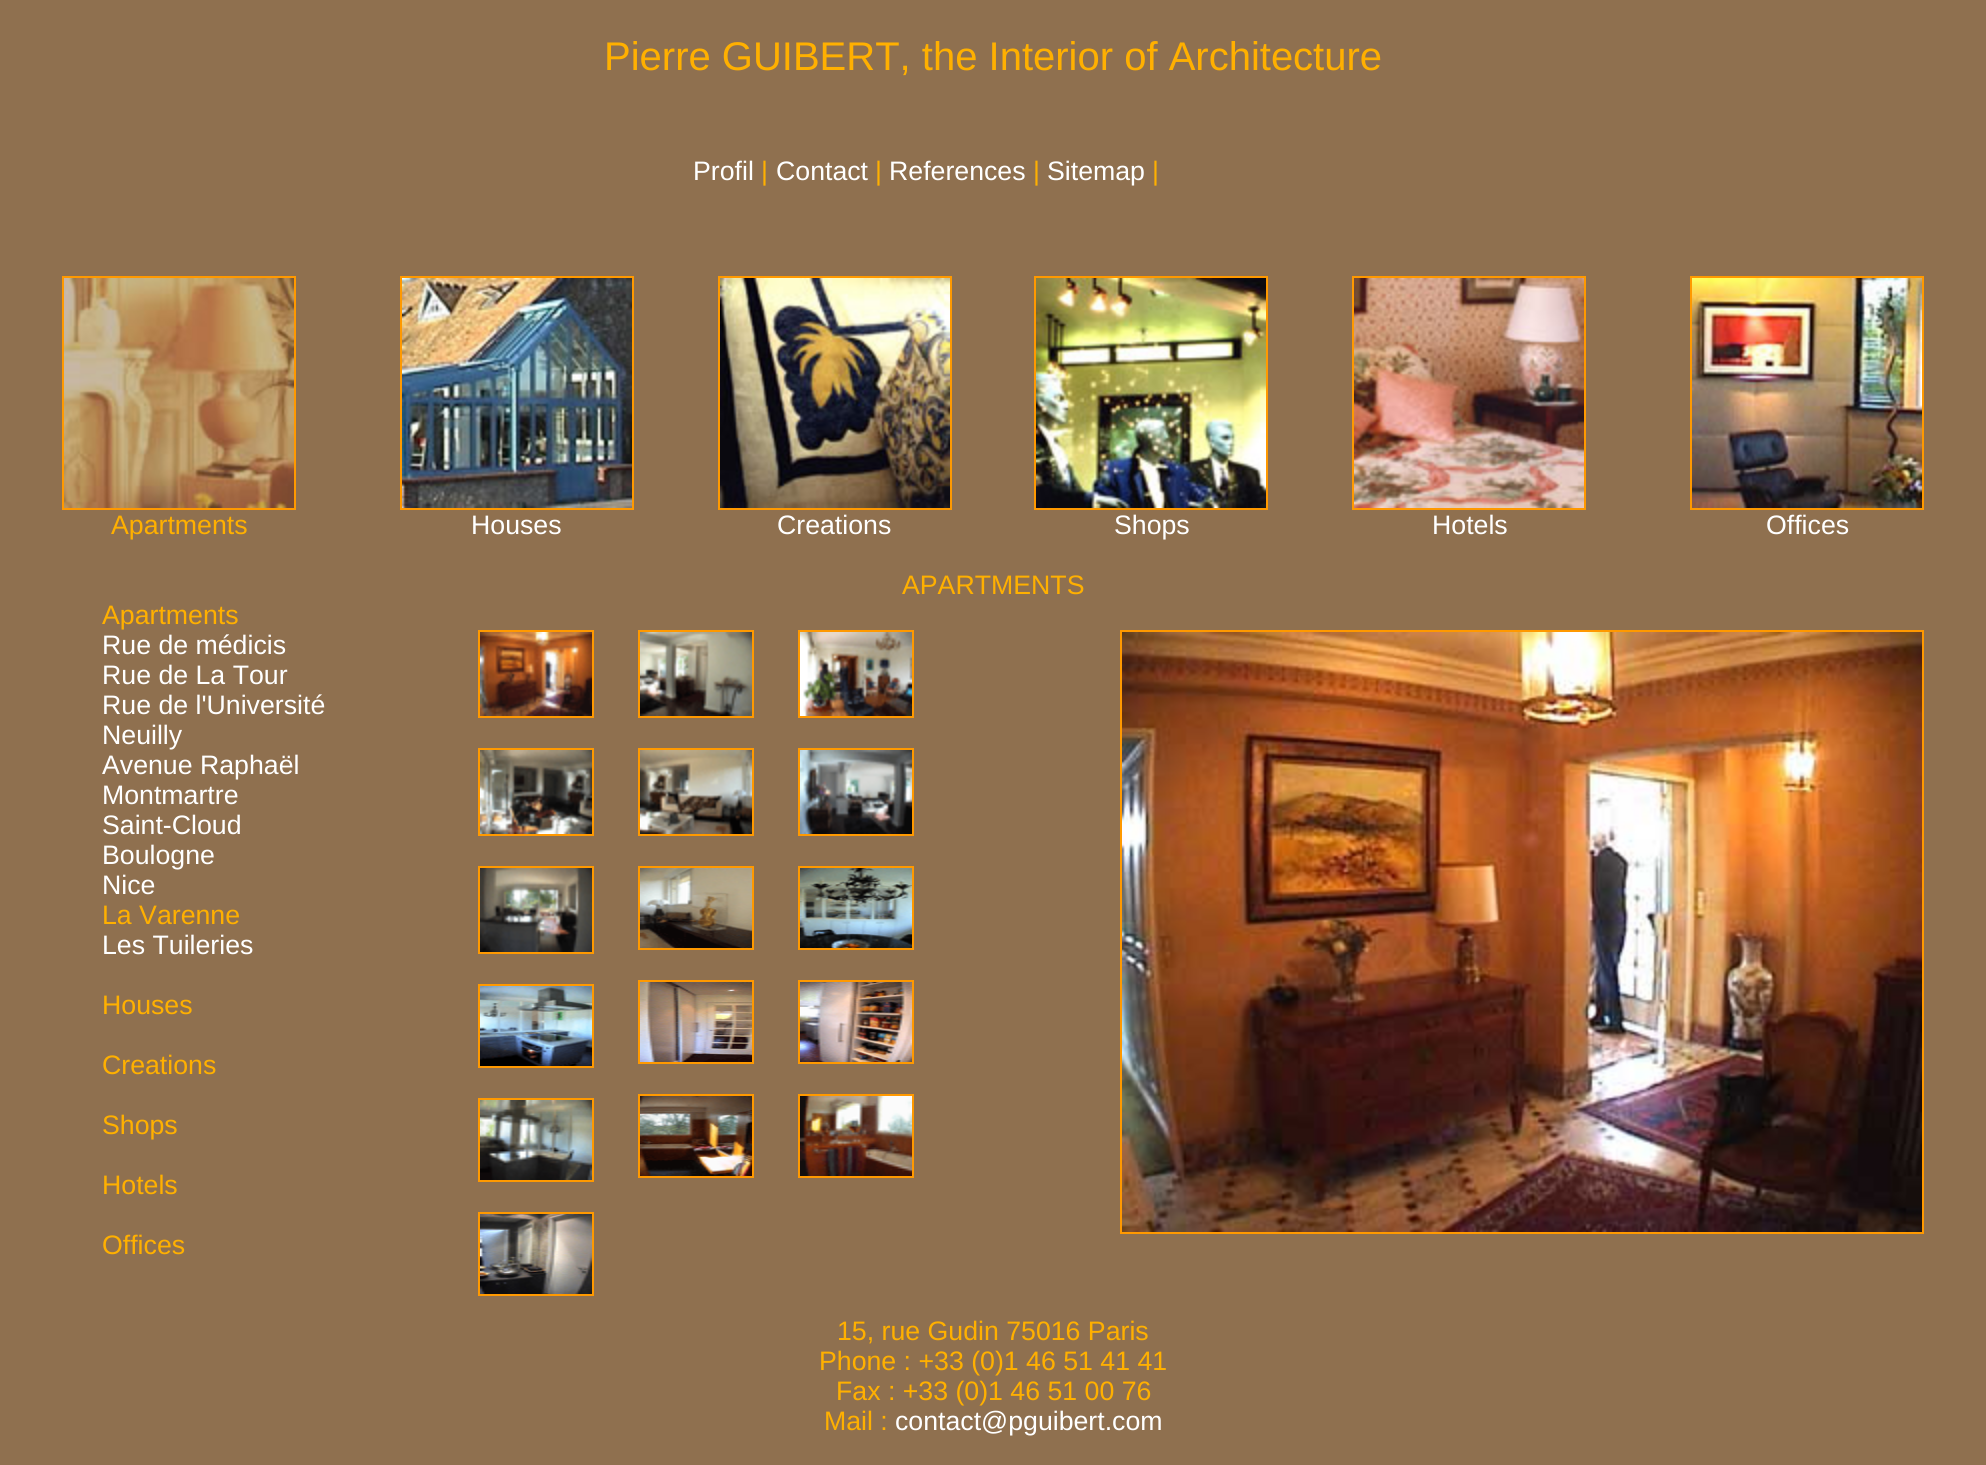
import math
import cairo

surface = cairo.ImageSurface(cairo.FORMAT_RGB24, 1986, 1465)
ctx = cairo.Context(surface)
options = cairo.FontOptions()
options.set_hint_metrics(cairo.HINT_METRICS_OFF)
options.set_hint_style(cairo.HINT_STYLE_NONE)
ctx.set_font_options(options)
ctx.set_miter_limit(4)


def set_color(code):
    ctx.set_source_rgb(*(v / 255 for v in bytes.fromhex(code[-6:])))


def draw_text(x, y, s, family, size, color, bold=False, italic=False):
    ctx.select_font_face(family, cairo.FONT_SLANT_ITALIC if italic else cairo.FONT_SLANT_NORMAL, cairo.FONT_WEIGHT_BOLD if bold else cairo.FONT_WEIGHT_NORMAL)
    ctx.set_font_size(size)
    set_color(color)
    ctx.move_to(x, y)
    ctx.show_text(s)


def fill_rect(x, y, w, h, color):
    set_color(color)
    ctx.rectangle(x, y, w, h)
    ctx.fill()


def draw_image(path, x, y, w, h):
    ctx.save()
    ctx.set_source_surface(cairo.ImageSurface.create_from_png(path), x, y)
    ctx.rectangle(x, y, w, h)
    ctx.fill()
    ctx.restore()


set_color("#8f704f")
ctx.paint()
draw_text(604, 70, "Pierre GUIBERT, the Interior of Architecture", "Liberation Sans", 40, "#ffb000")
draw_text(693, 180, "Profil", "Liberation Sans", 26.7, "#ffffff")
draw_text(761, 180, "|", "Liberation Sans", 26.7, "#ffb000")
draw_text(776, 180, "Contact", "Liberation Sans", 26.7, "#ffffff")
draw_text(875, 180, "|", "Liberation Sans", 26.7, "#ffb000")
draw_text(889, 180, "References", "Liberation Sans", 26.7, "#ffffff")
draw_text(1033, 180, "|", "Liberation Sans", 26.7, "#ffb000")
draw_text(1047, 180, "Sitemap", "Liberation Sans", 26.7, "#ffffff")
draw_text(1152, 180, "|", "Liberation Sans", 26.7, "#ffb000")
fill_rect(62, 276, 234, 234, "#ff9900")
draw_image("assets/img1.png", 64, 278, 230, 230)
fill_rect(400, 276, 234, 234, "#ff9900")
draw_image("assets/img2.png", 402, 278, 230, 230)
fill_rect(718, 276, 234, 234, "#ff9900")
draw_image("assets/img3.png", 720, 278, 230, 230)
fill_rect(1034, 276, 234, 234, "#ff9900")
draw_image("assets/img4.png", 1036, 278, 230, 230)
fill_rect(1352, 276, 234, 234, "#ff9900")
draw_image("assets/img5.png", 1354, 278, 230, 230)
fill_rect(1690, 276, 234, 234, "#ff9900")
draw_image("assets/img6.png", 1692, 278, 230, 230)
draw_text(111, 534, "Apartments", "Liberation Sans", 26.7, "#ffb000")
draw_text(471, 534, "Houses", "Liberation Sans", 26.7, "#ffffff")
draw_text(777, 534, "Creations", "Liberation Sans", 26.7, "#ffffff")
draw_text(1114, 534, "Shops", "Liberation Sans", 26.7, "#ffffff")
draw_text(1432, 534, "Hotels", "Liberation Sans", 26.7, "#ffffff")
draw_text(1766, 534, "Offices", "Liberation Sans", 26.7, "#ffffff")
draw_text(902, 594, "APARTMENTS", "Liberation Sans", 26.7, "#ffb000")
draw_text(102, 624, "Apartments", "Liberation Sans", 26.7, "#ffb000")
draw_text(102, 654, "Rue de médicis", "Liberation Sans", 26.7, "#ffffff")
draw_text(102, 684, "Rue de La Tour", "Liberation Sans", 26.7, "#ffffff")
draw_text(102, 714, "Rue de l'Université", "Liberation Sans", 26.7, "#ffffff")
draw_text(102, 744, "Neuilly", "Liberation Sans", 26.7, "#ffffff")
draw_text(102, 774, "Avenue Raphaël", "Liberation Sans", 26.7, "#ffffff")
draw_text(102, 804, "Montmartre", "Liberation Sans", 26.7, "#ffffff")
draw_text(102, 834, "Saint-Cloud", "Liberation Sans", 26.7, "#ffffff")
draw_text(102, 864, "Boulogne", "Liberation Sans", 26.7, "#ffffff")
draw_text(102, 894, "Nice", "Liberation Sans", 26.7, "#ffffff")
draw_text(102, 924, "La Varenne", "Liberation Sans", 26.7, "#ffb000")
draw_text(102, 954, "Les Tuileries", "Liberation Sans", 26.7, "#ffffff")
draw_text(102, 1014, "Houses", "Liberation Sans", 26.7, "#ffb000")
draw_text(102, 1074, "Creations", "Liberation Sans", 26.7, "#ffb000")
draw_text(102, 1134, "Shops", "Liberation Sans", 26.7, "#ffb000")
draw_text(102, 1194, "Hotels", "Liberation Sans", 26.7, "#ffb000")
draw_text(102, 1254, "Offices", "Liberation Sans", 26.7, "#ffb000")
fill_rect(478, 630, 116, 88, "#ff9900")
draw_image("assets/img7.png", 480, 632, 112, 84)
fill_rect(478, 748, 116, 88, "#ff9900")
draw_image("assets/img8.png", 480, 750, 112, 84)
fill_rect(478, 866, 116, 88, "#ff9900")
draw_image("assets/img9.png", 480, 868, 112, 84)
fill_rect(478, 984, 116, 84, "#ff9900")
draw_image("assets/img10.png", 480, 986, 112, 80)
fill_rect(478, 1098, 116, 84, "#ff9900")
draw_image("assets/img11.png", 480, 1100, 112, 80)
fill_rect(478, 1212, 116, 84, "#ff9900")
draw_image("assets/img12.png", 480, 1214, 112, 80)
fill_rect(638, 630, 116, 88, "#ff9900")
draw_image("assets/img13.png", 640, 632, 112, 84)
fill_rect(638, 748, 116, 88, "#ff9900")
draw_image("assets/img14.png", 640, 750, 112, 84)
fill_rect(638, 866, 116, 84, "#ff9900")
draw_image("assets/img15.png", 640, 868, 112, 80)
fill_rect(638, 980, 116, 84, "#ff9900")
draw_image("assets/img16.png", 640, 982, 112, 80)
fill_rect(638, 1094, 116, 84, "#ff9900")
draw_image("assets/img17.png", 640, 1096, 112, 80)
fill_rect(798, 630, 116, 88, "#ff9900")
draw_image("assets/img18.png", 800, 632, 112, 84)
fill_rect(798, 748, 116, 88, "#ff9900")
draw_image("assets/img19.png", 800, 750, 112, 84)
fill_rect(798, 866, 116, 84, "#ff9900")
draw_image("assets/img20.png", 800, 868, 112, 80)
fill_rect(798, 980, 116, 84, "#ff9900")
draw_image("assets/img21.png", 800, 982, 112, 80)
fill_rect(798, 1094, 116, 84, "#ff9900")
draw_image("assets/img22.png", 800, 1096, 112, 80)
fill_rect(1120, 630, 804, 604, "#ff9900")
draw_image("assets/img23.png", 1122, 632, 800, 600)
draw_text(837, 1340, "15, rue Gudin 75016 Paris", "Liberation Sans", 26.7, "#ffb000")
draw_text(819, 1370, "Phone : +33 (0)1 46 51 41 41", "Liberation Sans", 26.7, "#ffb000")
draw_text(836, 1400, "Fax : +33 (0)1 46 51 00 76", "Liberation Sans", 26.7, "#ffb000")
draw_text(824, 1430, "Mail :", "Liberation Sans", 26.7, "#ffb000")
draw_text(895, 1430, "contact@pguibert.com", "Liberation Sans", 26.7, "#ffffff")
surface.write_to_png("output.png")
